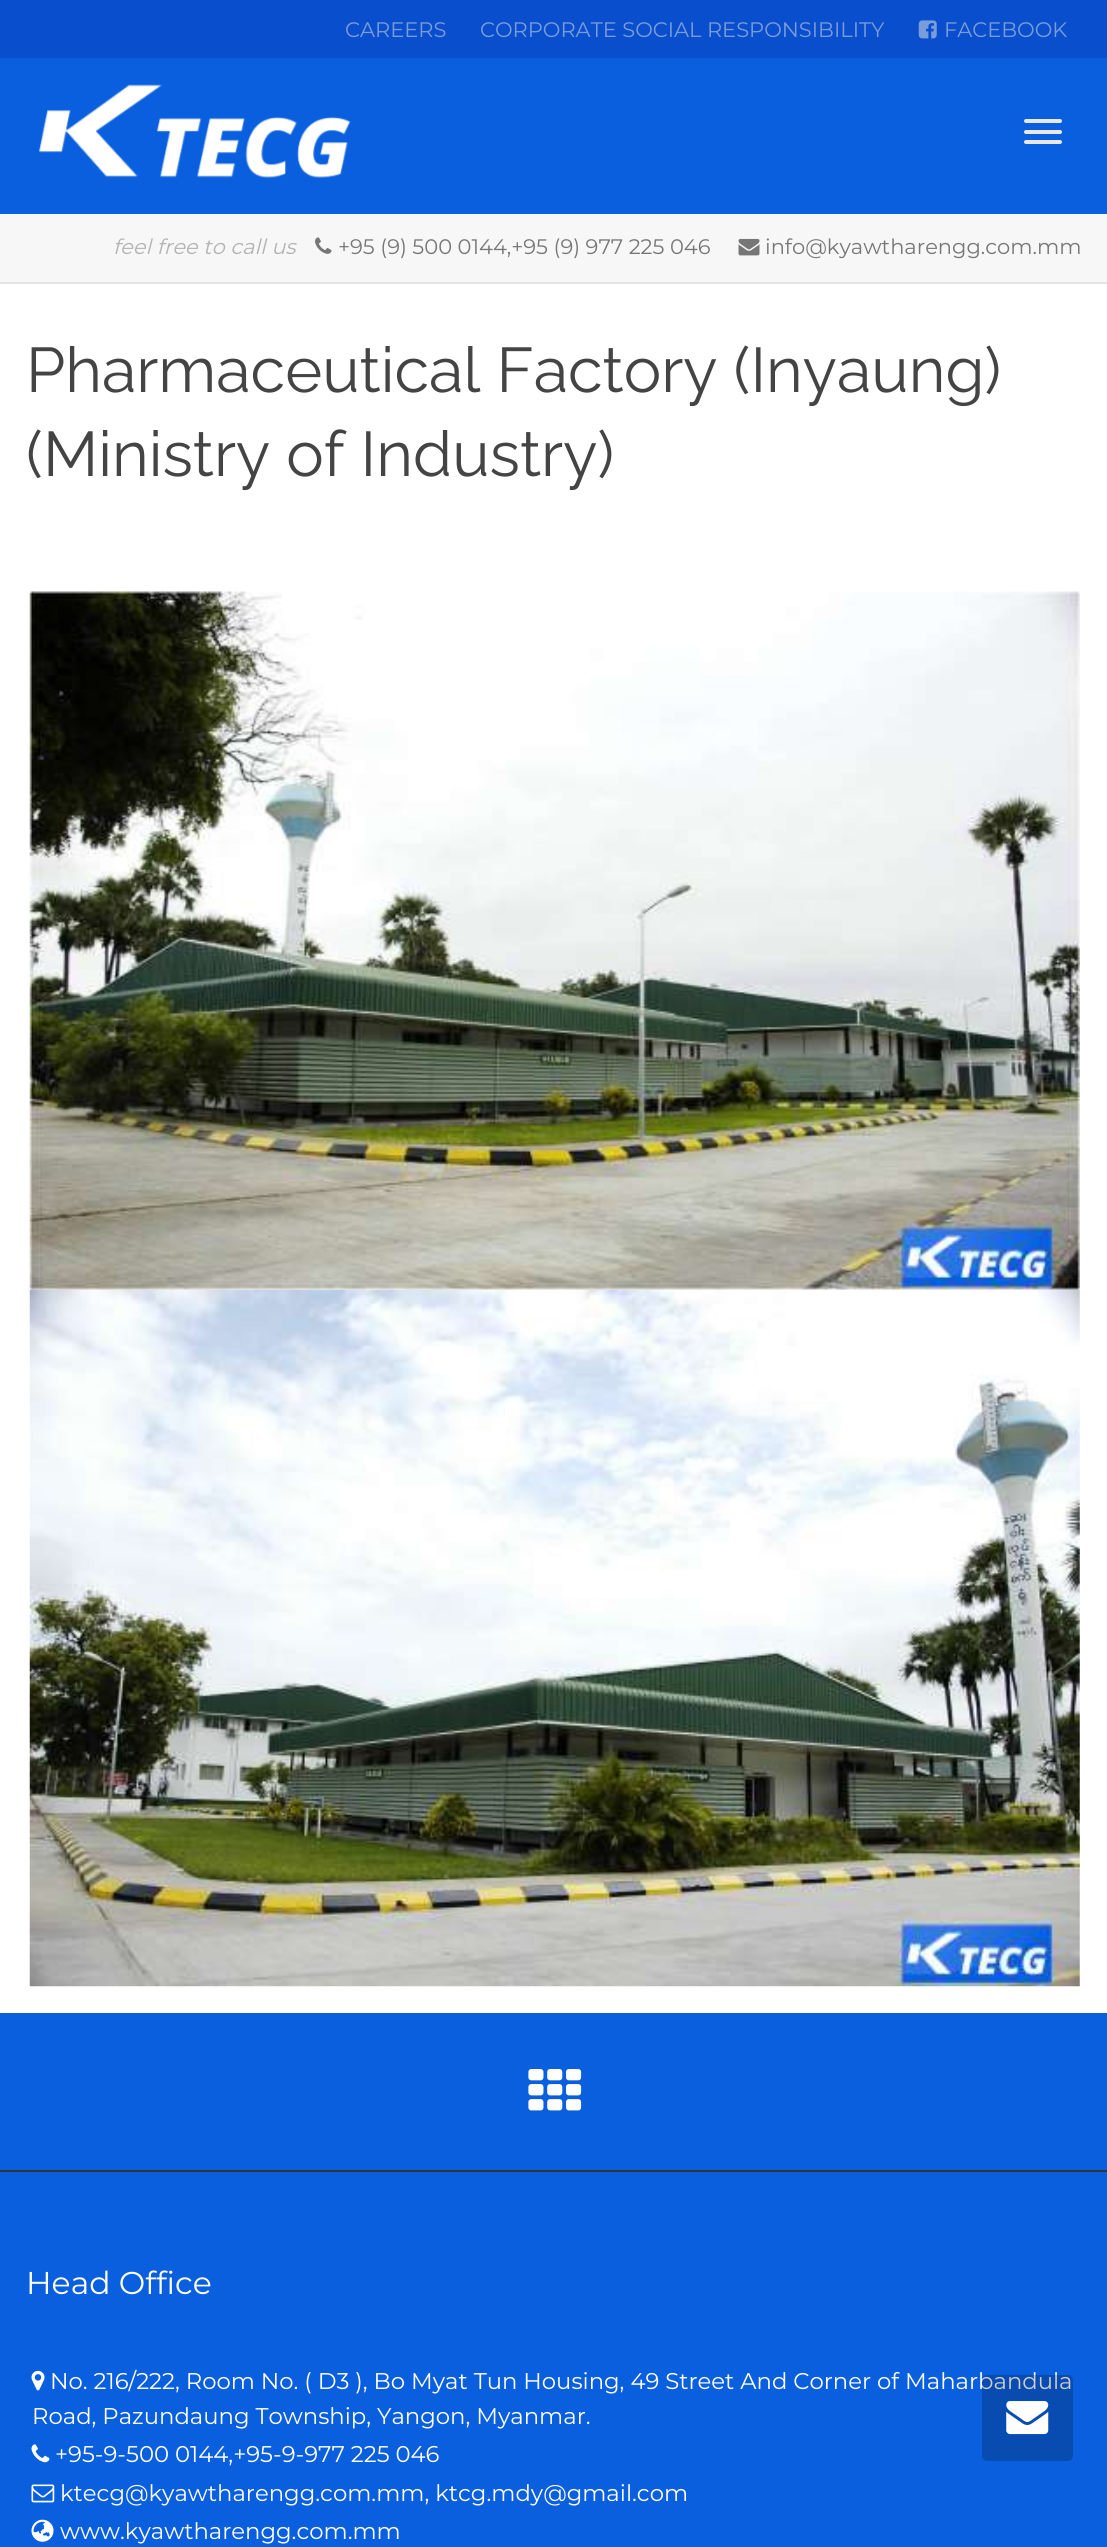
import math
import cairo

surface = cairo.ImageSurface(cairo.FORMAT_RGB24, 1107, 2547)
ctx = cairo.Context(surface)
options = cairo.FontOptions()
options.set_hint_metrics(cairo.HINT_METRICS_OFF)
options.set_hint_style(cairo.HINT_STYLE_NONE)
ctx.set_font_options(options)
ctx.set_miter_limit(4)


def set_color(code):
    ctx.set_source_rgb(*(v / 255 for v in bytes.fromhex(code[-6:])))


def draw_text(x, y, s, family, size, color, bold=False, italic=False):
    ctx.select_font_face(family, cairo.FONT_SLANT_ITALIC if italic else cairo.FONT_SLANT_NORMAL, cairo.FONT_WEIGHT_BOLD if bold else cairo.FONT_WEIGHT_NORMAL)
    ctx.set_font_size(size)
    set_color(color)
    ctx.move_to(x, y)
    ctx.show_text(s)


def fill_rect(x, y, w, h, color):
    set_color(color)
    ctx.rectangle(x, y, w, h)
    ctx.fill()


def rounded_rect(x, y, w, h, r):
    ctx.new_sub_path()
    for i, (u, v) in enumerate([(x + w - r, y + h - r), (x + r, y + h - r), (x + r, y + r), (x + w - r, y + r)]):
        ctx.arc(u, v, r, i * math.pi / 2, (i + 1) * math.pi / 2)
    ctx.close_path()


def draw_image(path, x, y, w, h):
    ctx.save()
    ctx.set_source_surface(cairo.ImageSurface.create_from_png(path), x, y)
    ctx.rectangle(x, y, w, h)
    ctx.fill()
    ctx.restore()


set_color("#ffffff")
ctx.paint()
fill_rect(0, 0, 1107, 58, "#094ecd")
draw_text(345, 37, "CAREERS", "Montserrat Thin", 21, "#7a9cdc")
draw_text(480, 37, "CORPORATE SOCIAL RESPONSIBILITY", "Montserrat Thin", 21, "#7a9cdc")
draw_image("assets/img1.png", 918, 20, 19, 19)
draw_text(944, 37, "FACEBOOK", "Montserrat Thin", 21, "#7a9cdc")
fill_rect(0, 58, 1107, 156, "#0a5fde")
draw_image("assets/img2.png", 39, 84, 312, 95)
set_color("#e8e8e8")
rounded_rect(1024, 119, 38, 4, 2)
ctx.fill()
rounded_rect(1024, 130, 38, 4, 2)
ctx.fill()
rounded_rect(1024, 140, 38, 4, 2)
ctx.fill()
fill_rect(0, 214, 1107, 68, "#f7f7f7")
fill_rect(0, 282, 1107, 2, "#e5e5e5")
draw_text(113, 254, "feel free to call us", "Montserrat Thin", 21, "#b3b3b3", italic=True)
draw_image("assets/img3.png", 315, 237, 17, 17)
draw_text(338, 254, "+95 (9) 500 0144,+95 (9) 977 225 046", "Montserrat Thin", 21, "#777777")
draw_image("assets/img4.png", 738, 238, 22, 18)
draw_text(765, 254, "info@kyawtharengg.com.mm", "Montserrat Thin", 21, "#777777")
draw_text(26, 392, "Pharmaceutical Factory (Inyaung)", "Raleway", 63, "#444444")
draw_text(26, 476, "(Ministry of Industry)", "Raleway", 63, "#444444")
draw_image("assets/img5.png", 29, 591, 1051, 699)
draw_image("assets/img6.png", 29, 1289, 1051, 698)
fill_rect(0, 2013, 1107, 157, "#0a5fde")
draw_image("assets/img7.png", 528, 2069, 54, 42)
fill_rect(0, 2172, 1107, 375, "#0a5fde")
fill_rect(0, 2170, 1107, 2, "#333333")
draw_text(26, 2294, "Head Office", "Montserrat Thin", 31.5, "#ffffff")
draw_image("assets/img8.png", 31, 2370, 14, 21)
draw_text(50, 2389, "No. 216/222, Room No. ( D3 ), Bo Myat Tun Housing, 49 Street And Corner of Maharbandula", "Montserrat Thin", 22.75, "#ffffff")
draw_text(32, 2424, "Road, Pazundaung Township, Yangon, Myanmar.", "Montserrat Thin", 22.75, "#ffffff")
draw_image("assets/img9.png", 31, 2444, 19, 19)
draw_text(55, 2462, "+95-9-500 0144,+95-9-977 225 046", "Montserrat Thin", 22.75, "#ffffff")
draw_image("assets/img10.png", 31, 2484, 24, 19)
draw_text(60, 2501, "ktecg@kyawtharengg.com.mm, ktcg.mdy@gmail.com", "Montserrat Thin", 22.75, "#ffffff")
draw_image("assets/img11.png", 31, 2519, 23, 23)
draw_text(60, 2539, "www.kyawtharengg.com.mm", "Montserrat Thin", 22.75, "#ffffff")
ctx.set_source_rgba(0, 0, 0, 0.2)
rounded_rect(982, 2375, 91, 86, 5)
ctx.fill()
draw_image("assets/img12.png", 1006, 2401, 43, 34)
surface.write_to_png("output.png")
